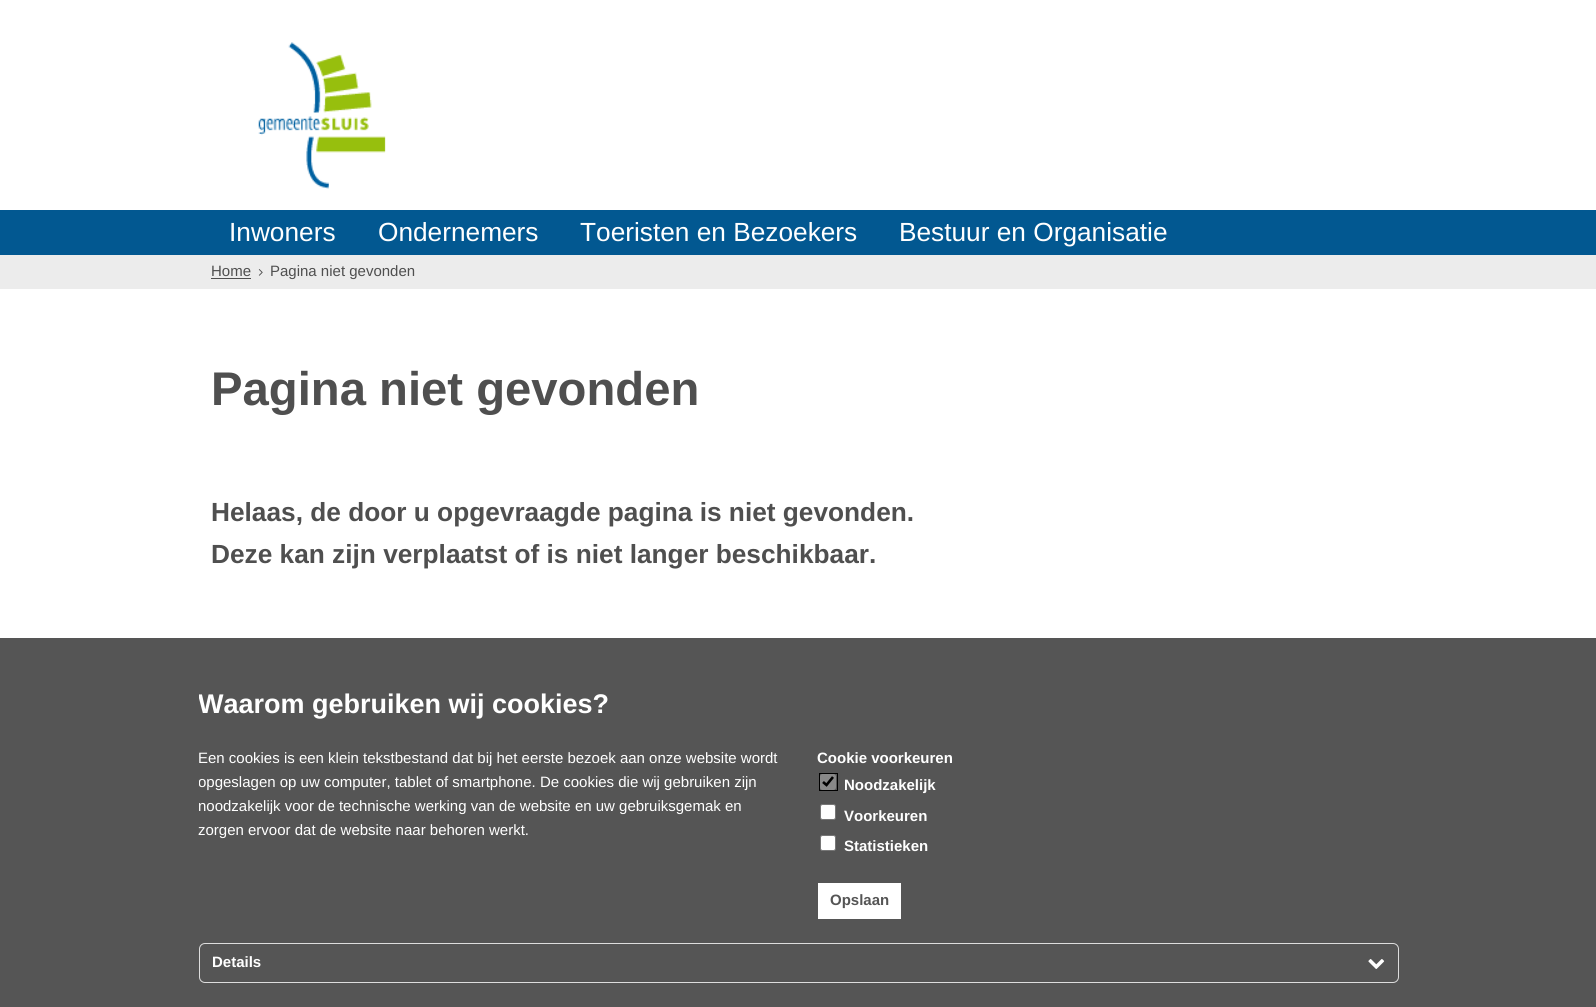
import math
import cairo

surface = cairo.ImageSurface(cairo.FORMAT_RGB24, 1596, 1007)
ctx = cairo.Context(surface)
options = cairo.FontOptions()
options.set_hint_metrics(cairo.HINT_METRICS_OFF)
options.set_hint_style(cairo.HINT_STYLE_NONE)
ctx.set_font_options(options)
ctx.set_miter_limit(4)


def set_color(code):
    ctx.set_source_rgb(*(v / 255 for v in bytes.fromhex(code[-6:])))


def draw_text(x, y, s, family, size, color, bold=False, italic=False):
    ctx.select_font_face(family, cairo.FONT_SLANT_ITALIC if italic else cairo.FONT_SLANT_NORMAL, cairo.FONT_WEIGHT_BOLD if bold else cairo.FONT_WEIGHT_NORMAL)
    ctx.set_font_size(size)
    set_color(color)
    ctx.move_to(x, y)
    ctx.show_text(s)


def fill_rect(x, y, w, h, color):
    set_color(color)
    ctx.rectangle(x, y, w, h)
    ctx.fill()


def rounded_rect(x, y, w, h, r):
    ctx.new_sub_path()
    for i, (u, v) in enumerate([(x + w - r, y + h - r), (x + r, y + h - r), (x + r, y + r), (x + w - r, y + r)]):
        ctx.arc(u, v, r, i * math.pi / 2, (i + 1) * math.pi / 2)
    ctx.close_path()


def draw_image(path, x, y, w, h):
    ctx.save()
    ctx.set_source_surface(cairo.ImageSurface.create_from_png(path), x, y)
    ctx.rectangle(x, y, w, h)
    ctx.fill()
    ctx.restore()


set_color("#ffffff")
ctx.paint()
draw_image("assets/img1.png", 258, 42, 128, 147)
fill_rect(0, 210, 1596, 45, "#025891")
draw_text(229, 241, "Inwoners", "Liberation Sans", 26.25, "#ffffff")
draw_text(378, 241, "Ondernemers", "Liberation Sans", 26.25, "#ffffff")
draw_text(580, 241, "Toeristen en Bezoekers", "Liberation Sans", 26.25, "#ffffff")
draw_text(899, 241, "Bestuur en Organisatie", "Liberation Sans", 26.25, "#ffffff")
fill_rect(0, 255, 1596, 34, "#ececec")
draw_text(211, 276, "Home", "Liberation Sans", 15, "#4f4f4f")
fill_rect(211, 278, 40, 1, "#4f4f4f")
draw_image("assets/img2.png", 258, 269, 5, 7)
draw_text(270, 276, "Pagina niet gevonden", "Liberation Sans", 15, "#4f4f4f")
draw_text(211, 405, "Pagina niet gevonden", "Liberation Sans", 47.25, "#4f4f4f", bold=True)
draw_text(211, 521, "Helaas, de door u opgevraagde pagina is niet gevonden.", "Liberation Sans", 26.25, "#4f4f4f", bold=True)
draw_text(211, 563, "Deze kan zijn verplaatst of is niet langer beschikbaar.", "Liberation Sans", 26.25, "#4f4f4f", bold=True)
fill_rect(0, 638, 1596, 369, "#555555")
ctx.save()
ctx.rectangle(199, 663, 1200, 320)
ctx.clip()
draw_text(198, 713, "Waarom gebruiken wij cookies?", "Liberation Sans", 27, "#ffffff", bold=True)
ctx.restore()
draw_text(198, 763, "Een cookies is een klein tekstbestand dat bij het eerste bezoek aan onze website wordt", "Liberation Sans", 15, "#ffffff")
ctx.save()
ctx.rectangle(199, 746, 1200, 197)
ctx.clip()
draw_text(198, 787, "opgeslagen op uw computer, tablet of smartphone. De cookies die wij gebruiken zijn", "Liberation Sans", 15, "#ffffff")
ctx.restore()
draw_text(198, 811, "noodzakelijk voor de technische werking van de website en uw gebruiksgemak en", "Liberation Sans", 15, "#ffffff")
draw_text(198, 835, "zorgen ervoor dat de website naar behoren werkt.", "Liberation Sans", 15, "#ffffff")
draw_text(817, 763, "Cookie voorkeuren", "Liberation Sans", 15, "#ffffff", bold=True)
set_color("#888888")
rounded_rect(820, 774, 16, 16, 2.5)
ctx.fill()
ctx.new_path()
ctx.move_to(823, 782)
ctx.line_to(826.5, 785)
ctx.line_to(833, 777)
set_color("#000000")
ctx.set_line_width(2.6)
ctx.stroke()
ctx.rectangle(819.5, 773.5, 18, 17)
ctx.set_line_width(1)
ctx.stroke()
draw_text(844, 790, "Noodzakelijk", "Liberation Sans", 15, "#ffffff", bold=True)
rounded_rect(820.5, 804.5, 15, 15, 2)
ctx.fill_preserve()
set_color("#767676")
ctx.stroke()
draw_text(844, 821, "Voorkeuren", "Liberation Sans", 15, "#ffffff", bold=True)
rounded_rect(820.5, 835.5, 15, 15, 2)
ctx.fill_preserve()
set_color("#767676")
ctx.stroke()
draw_text(844, 851, "Statistieken", "Liberation Sans", 15, "#ffffff", bold=True)
fill_rect(818, 883, 83, 36, "#ffffff")
draw_text(830, 905, "Opslaan", "Liberation Sans", 15, "#555555", bold=True)
rounded_rect(199.5, 943.5, 1199, 39, 5.5)
set_color("#dddddd")
ctx.stroke()
draw_text(212, 967, "Details", "Liberation Sans", 15, "#ffffff", bold=True)
draw_image("assets/img3.png", 1368, 959, 17, 10)
surface.write_to_png("output.png")
